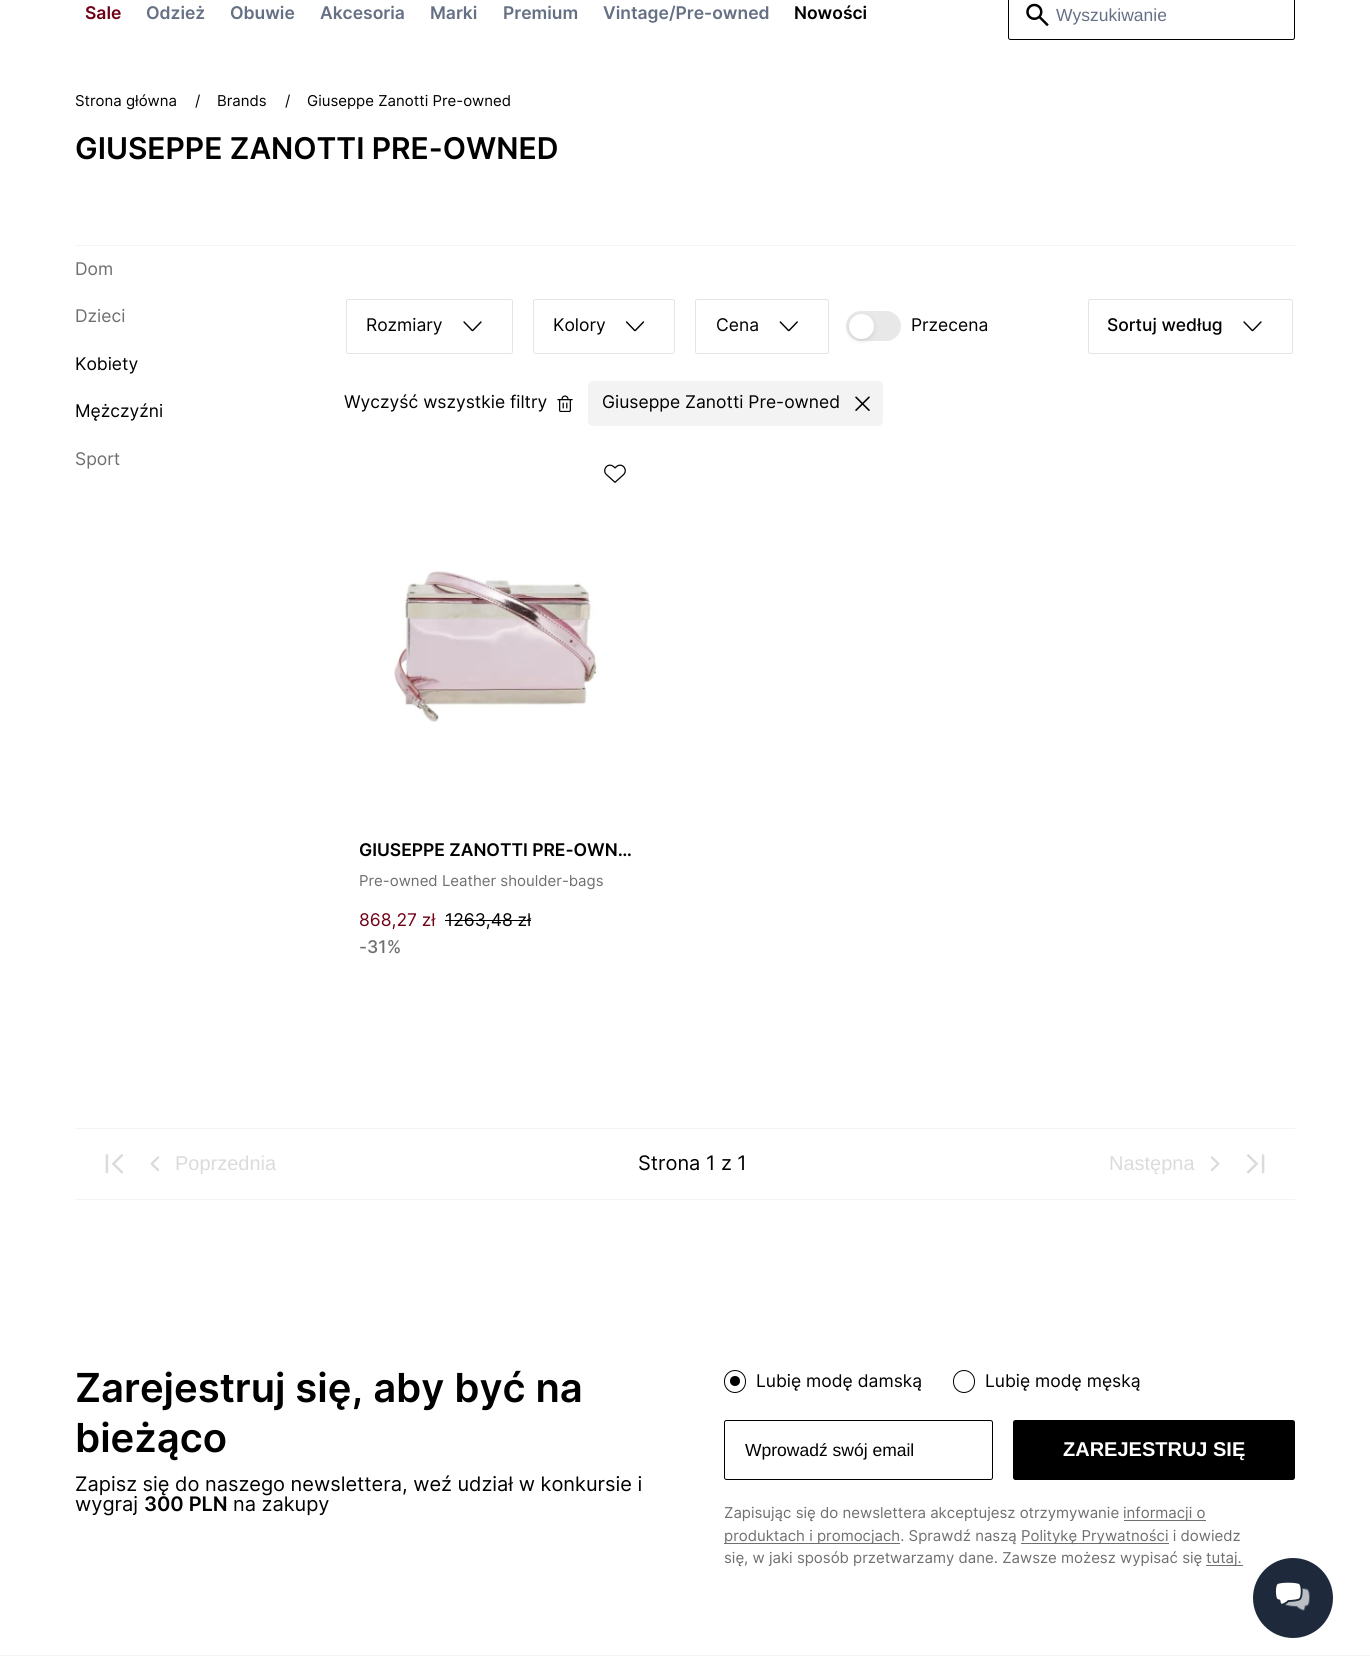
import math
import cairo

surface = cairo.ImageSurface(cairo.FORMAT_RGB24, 1370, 1675)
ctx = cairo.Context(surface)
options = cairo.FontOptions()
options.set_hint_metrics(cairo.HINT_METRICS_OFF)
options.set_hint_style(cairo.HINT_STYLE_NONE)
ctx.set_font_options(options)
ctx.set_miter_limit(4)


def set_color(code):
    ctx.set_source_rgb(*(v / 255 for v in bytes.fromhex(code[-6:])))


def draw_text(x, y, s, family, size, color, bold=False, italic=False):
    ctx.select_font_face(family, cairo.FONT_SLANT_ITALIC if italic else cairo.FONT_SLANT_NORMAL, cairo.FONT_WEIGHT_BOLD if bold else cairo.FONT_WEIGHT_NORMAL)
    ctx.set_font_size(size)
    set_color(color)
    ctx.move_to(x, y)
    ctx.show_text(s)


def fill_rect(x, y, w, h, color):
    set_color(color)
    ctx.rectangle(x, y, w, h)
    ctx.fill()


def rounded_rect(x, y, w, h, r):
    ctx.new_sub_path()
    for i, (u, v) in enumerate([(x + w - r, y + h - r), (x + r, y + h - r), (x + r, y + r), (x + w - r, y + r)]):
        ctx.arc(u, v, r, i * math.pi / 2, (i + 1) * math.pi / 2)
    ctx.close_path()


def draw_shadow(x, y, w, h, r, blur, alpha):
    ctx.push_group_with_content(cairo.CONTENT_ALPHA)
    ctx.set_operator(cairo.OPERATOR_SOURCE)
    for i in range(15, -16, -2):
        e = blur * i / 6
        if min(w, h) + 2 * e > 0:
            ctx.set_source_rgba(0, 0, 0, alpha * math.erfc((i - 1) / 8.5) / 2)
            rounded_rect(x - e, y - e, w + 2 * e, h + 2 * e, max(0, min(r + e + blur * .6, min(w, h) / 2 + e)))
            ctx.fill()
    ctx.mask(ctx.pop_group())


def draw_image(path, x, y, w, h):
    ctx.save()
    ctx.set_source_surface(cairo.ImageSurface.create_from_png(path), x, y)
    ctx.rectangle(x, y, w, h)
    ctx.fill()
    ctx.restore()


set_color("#ffffff")
ctx.paint()
draw_text(85, 19, "Sale", "Inter SemiBold", 17.5, "#700016")
draw_text(146, 19, "Odzież", "Inter SemiBold", 17.5, "#667085")
draw_text(230, 19, "Obuwie", "Inter SemiBold", 17.5, "#667085")
draw_text(320, 19, "Akcesoria", "Inter SemiBold", 17.5, "#667085")
draw_text(430, 19, "Marki", "Inter SemiBold", 17.5, "#667085")
draw_text(503, 19, "Premium", "Inter SemiBold", 17.5, "#667085")
draw_text(603, 19, "Vintage/Pre-owned", "Inter SemiBold", 17.5, "#667085")
draw_text(794, 19, "Nowości", "Inter SemiBold", 17.5, "#000000")
rounded_rect(1008.5, -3.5, 286, 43, 2)
ctx.set_line_width(1)
ctx.stroke()
draw_image("assets/img1.png", 1026, 3, 23, 24)
draw_text(1056, 21, "Wyszukiwanie", "Liberation Sans", 17.5, "#667085")
draw_text(75, 106, "Strona główna", "Inter", 15, "#000000")
draw_text(195, 106, "/", "Inter", 15, "#000000")
draw_text(217, 106, "Brands", "Inter", 15, "#000000")
draw_text(285, 106, "/", "Inter", 15, "#000000")
draw_text(307, 106, "Giuseppe Zanotti Pre-owned", "Inter", 15, "#000000")
draw_text(75, 159, "GIUSEPPE ZANOTTI PRE-OWNED", "Inter SemiBold", 30, "#000000")
fill_rect(75, 245, 1220, 1, "#f5f3f3")
draw_text(75, 275, "Dom", "Inter", 17.5, "#6f6f6f")
draw_text(75, 322, "Dzieci", "Inter", 17.5, "#6f6f6f")
draw_text(75, 370, "Kobiety", "Inter", 17.5, "#000000")
draw_text(75, 417, "Mężczyźni", "Inter", 17.5, "#000000")
draw_text(75, 465, "Sport", "Inter", 17.5, "#6f6f6f")
rounded_rect(346.5, 299.5, 166, 54, 2)
set_color("#e8e2e2")
ctx.stroke()
draw_text(366, 331, "Rozmiary", "Inter", 17.5, "#000000")
draw_image("assets/img2.png", 463, 321, 19, 11)
rounded_rect(533.5, 299.5, 141, 54, 2)
set_color("#e8e2e2")
ctx.stroke()
draw_text(553, 331, "Kolory", "Inter", 17.5, "#000000")
draw_image("assets/img3.png", 625, 321, 20, 11)
rounded_rect(695.5, 299.5, 133, 54, 2)
set_color("#e8e2e2")
ctx.stroke()
draw_text(716, 331, "Cena", "Inter", 17.5, "#000000")
draw_image("assets/img4.png", 779, 321, 19, 11)
set_color("#e8e8e8")
rounded_rect(846, 311, 55, 30, 15)
ctx.fill()
set_color("#000000")
draw_shadow(849, 316, 25, 25, 12.5, 2.5, 0.1)
set_color("#ffffff")
ctx.arc(861.5, 326.5, 12.5, 0, 2 * math.pi)
ctx.fill()
draw_text(911, 331, "Przecena", "Inter", 17.5, "#000000")
rounded_rect(1088.5, 299.5, 204, 54, 2)
set_color("#e8e2e2")
ctx.stroke()
draw_text(1107, 331, "Sortuj według", "Inter Medium", 17.5, "#000000")
draw_image("assets/img2.png", 1243, 321, 19, 11)
draw_text(344, 408, "Wyczyść wszystkie filtry", "Inter", 17.5, "#000000")
draw_image("assets/img5.png", 557, 395, 16, 17)
set_color("#f3f3f3")
rounded_rect(588, 381, 295, 45, 5)
ctx.fill()
draw_text(602, 408, "Giuseppe Zanotti Pre-owned", "Inter", 17.5, "#000000")
draw_image("assets/img6.png", 855, 396, 15, 15)
draw_image("assets/img7.png", 604, 464, 22, 19)
draw_image("assets/img8.png", 394, 571, 203, 151)
draw_text(359, 856, "GIUSEPPE ZANOTTI PRE-OWN…", "Inter SemiBold", 17.5, "#000000")
draw_text(359, 886, "Pre-owned Leather shoulder-bags", "Inter", 15, "#6f6f6f")
draw_text(359, 926, "868,27 zł", "Inter", 17.5, "#700016")
draw_text(445, 926, "1263,48 zł", "Inter", 17.5, "#000000")
fill_rect(445, 920, 86, 1, "#000000")
draw_text(359, 953, "-31%", "Inter Medium", 17.5, "#6f6f6f")
fill_rect(75, 1128, 1220, 1, "#f5f3f3")
fill_rect(75, 1199, 1220, 1, "#f5f3f3")
draw_image("assets/img9.png", 105, 1154, 19, 20)
draw_image("assets/img10.png", 150, 1156, 10, 15)
draw_text(175, 1170, "Poprzednia", "Liberation Sans", 20, "#dbdbdb")
draw_text(638, 1170, "Strona 1 z 1", "Inter", 20, "#000000")
draw_text(1109, 1170, "Następna", "Liberation Sans", 20, "#dbdbdb")
draw_image("assets/img11.png", 1210, 1156, 10, 15)
draw_image("assets/img12.png", 1246, 1154, 19, 20)
draw_text(75, 1402, "Zarejestruj się, aby być na", "Inter SemiBold", 40, "#000000")
draw_text(75, 1452, "bieżąco", "Inter SemiBold", 40, "#000000")
draw_text(75, 1491, "Zapisz się do naszego newslettera, weź udział w konkursie i", "Inter", 20, "#000000")
draw_text(75, 1511, "wygraj", "Inter", 20, "#000000")
draw_text(144, 1511, "300 PLN", "Inter SemiBold", 20, "#000000")
draw_text(233, 1511, "na zakupy", "Inter", 20, "#000000")
rounded_rect(724.5, 1370.5, 21, 22, 10.5)
ctx.stroke()
ctx.arc(735, 1381, 5, 0, 2 * math.pi)
ctx.fill()
draw_text(756, 1387, "Lubię modę damską", "Inter", 17.5, "#000000")
rounded_rect(953.5, 1370.5, 21, 22, 10.5)
ctx.stroke()
draw_text(985, 1387, "Lubię modę męską", "Inter", 17.5, "#000000")
rounded_rect(724.5, 1420.5, 268, 59, 2)
ctx.stroke()
draw_text(745, 1456, "Wprowadź swój email", "Liberation Sans", 17.5, "#000000")
rounded_rect(1013, 1420, 282, 60, 2.5)
ctx.fill()
draw_text(1063, 1456, "ZAREJESTRUJ SIĘ", "Liberation Sans", 20, "#ffffff", bold=True)
draw_text(724, 1518, "Zapisując się do newslettera akceptujesz otrzymywanie", "Inter", 15, "#6f6f6f")
fill_rect(1124, 1520, 82, 1, "#6f6f6f")
draw_text(1123, 1518, "informacji o", "Inter", 15, "#6f6f6f")
fill_rect(724, 1543, 176, 1, "#6f6f6f")
draw_text(724, 1541, "produktach i promocjach. Sprawdź naszą", "Inter", 15, "#6f6f6f")
fill_rect(1021, 1543, 148, 1, "#6f6f6f")
draw_text(1021, 1541, "Politykę Prywatności i dowiedz", "Inter", 15, "#6f6f6f")
draw_text(724, 1563, "się, w jaki sposób przetwarzamy dane. Zawsze możesz wypisać się", "Inter", 15, "#6f6f6f")
fill_rect(1206, 1565, 37, 1, "#6f6f6f")
draw_text(1206, 1563, "tutaj.", "Inter", 15, "#6f6f6f")
fill_rect(0, 1655, 1370, 1, "#f5f3f3")
set_color("#1e2a3c")
ctx.new_path()
ctx.arc(1293, 1598, 40, 0, 2 * math.pi)
ctx.fill()
draw_image("assets/img13.png", 1275, 1582, 35, 29)
surface.write_to_png("output.png")
